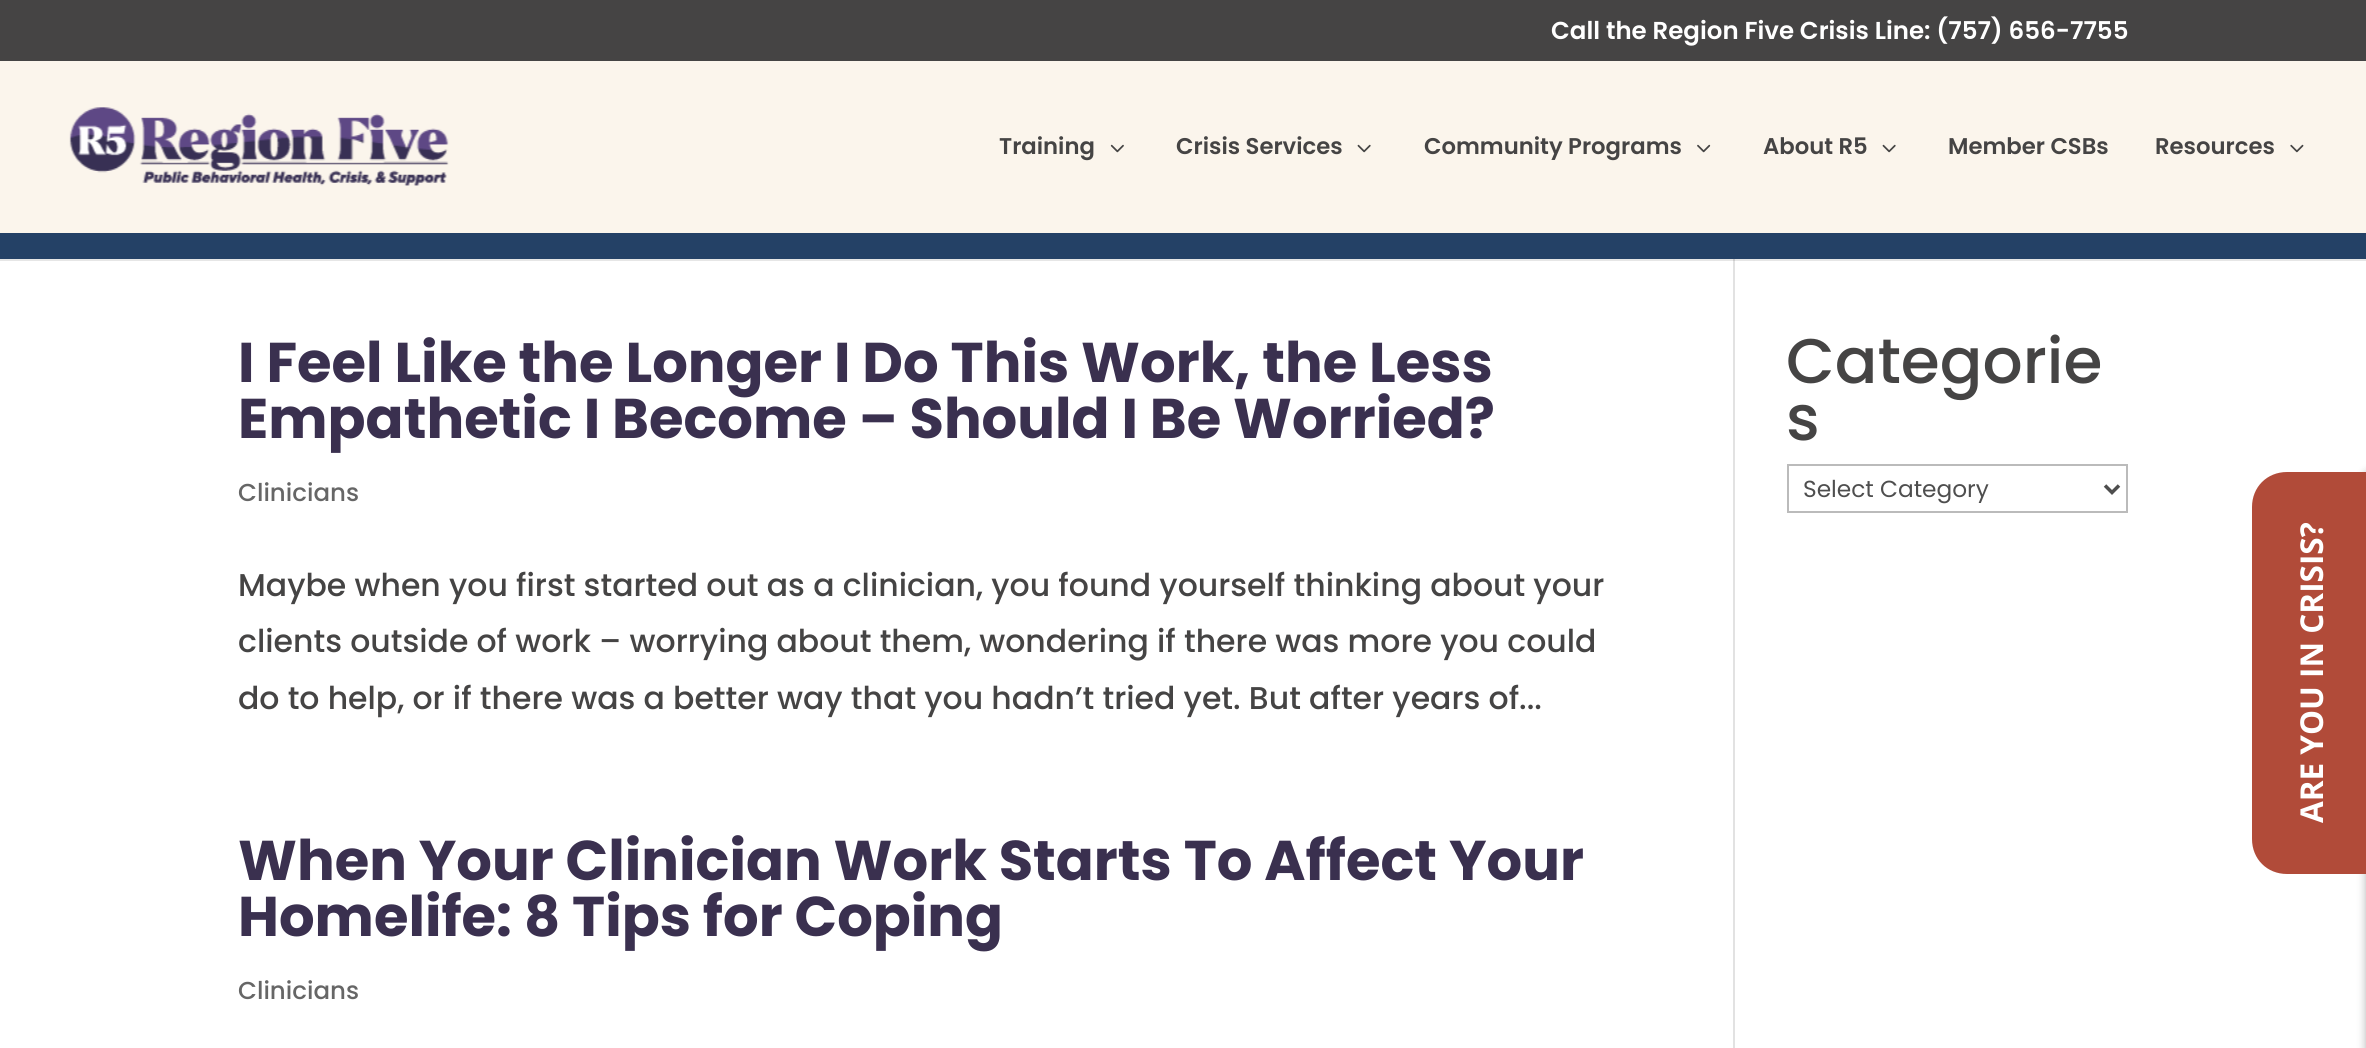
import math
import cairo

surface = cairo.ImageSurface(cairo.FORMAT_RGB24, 2366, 1048)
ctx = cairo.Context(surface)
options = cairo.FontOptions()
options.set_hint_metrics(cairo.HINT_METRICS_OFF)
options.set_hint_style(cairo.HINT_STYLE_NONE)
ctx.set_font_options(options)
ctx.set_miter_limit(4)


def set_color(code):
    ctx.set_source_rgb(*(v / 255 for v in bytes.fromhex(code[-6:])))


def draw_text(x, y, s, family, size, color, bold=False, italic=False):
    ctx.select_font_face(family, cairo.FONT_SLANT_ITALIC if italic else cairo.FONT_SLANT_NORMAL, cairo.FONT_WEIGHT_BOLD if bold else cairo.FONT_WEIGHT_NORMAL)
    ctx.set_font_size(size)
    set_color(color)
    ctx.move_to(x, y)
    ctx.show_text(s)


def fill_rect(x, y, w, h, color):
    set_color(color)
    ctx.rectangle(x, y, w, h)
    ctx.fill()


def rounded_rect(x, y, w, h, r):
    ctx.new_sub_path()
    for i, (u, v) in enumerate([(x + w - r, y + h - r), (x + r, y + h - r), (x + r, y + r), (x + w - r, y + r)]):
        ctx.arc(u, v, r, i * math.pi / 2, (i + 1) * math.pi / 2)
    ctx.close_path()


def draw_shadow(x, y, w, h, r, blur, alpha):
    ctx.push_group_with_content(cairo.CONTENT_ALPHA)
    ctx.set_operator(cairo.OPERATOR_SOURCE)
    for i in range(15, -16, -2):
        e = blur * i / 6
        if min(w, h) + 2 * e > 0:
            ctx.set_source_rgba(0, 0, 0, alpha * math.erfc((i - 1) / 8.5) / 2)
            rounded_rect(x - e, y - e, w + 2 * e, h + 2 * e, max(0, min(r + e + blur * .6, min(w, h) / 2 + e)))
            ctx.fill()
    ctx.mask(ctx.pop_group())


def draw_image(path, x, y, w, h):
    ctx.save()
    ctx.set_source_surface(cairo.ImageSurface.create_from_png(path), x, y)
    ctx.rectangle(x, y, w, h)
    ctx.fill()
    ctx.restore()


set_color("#ffffff")
ctx.paint()
fill_rect(0, 259, 2366, 2, "#e6e6e6")
fill_rect(0, 0, 2366, 61, "#454444")
draw_text(1551, 39, "Call the Region Five Crisis Line: (757) 656-7755", "Poppins SemiBold", 24.5, "#ffffff")
fill_rect(0, 61, 2366, 172, "#fbf5ec")
fill_rect(0, 233, 2366, 26, "#244166")
draw_image("assets/img1.png", 69, 107, 380, 79)
draw_text(999, 154, "Training", "Poppins SemiBold", 22.75, "#454444")
draw_image("assets/img2.png", 1110, 144, 14, 9)
draw_text(1176, 154, "Crisis Services", "Poppins SemiBold", 22.75, "#454444")
draw_image("assets/img3.png", 1357, 144, 14, 9)
draw_text(1424, 154, "Community Programs", "Poppins SemiBold", 22.75, "#454444")
draw_image("assets/img4.png", 1697, 144, 14, 9)
draw_text(1763, 154, "About R5", "Poppins SemiBold", 22.75, "#454444")
draw_image("assets/img3.png", 1882, 144, 14, 9)
draw_text(1948, 154, "Member CSBs", "Poppins SemiBold", 22.75, "#454444")
draw_text(2155, 154, "Resources", "Poppins SemiBold", 22.75, "#454444")
draw_image("assets/img5.png", 2290, 144, 14, 9)
fill_rect(1733, 261, 2, 787, "#e2e2e2")
fill_rect(1733, 259, 2, 2, "#cbcbcb")
draw_text(238, 382, "I Feel Like the Longer I Do This Work, the Less", "Poppins", 56, "#3a304f", bold=True)
draw_text(238, 438, "Empathetic I Become – Should I Be Worried?", "Poppins", 56, "#3a304f", bold=True)
draw_text(238, 501, "Clinicians", "Poppins Medium", 24.5, "#666666")
draw_text(238, 596, "Maybe when you first started out as a clinician, you found yourself thinking about your", "Poppins Medium", 31.5, "#454444")
draw_text(238, 652, "clients outside of work – worrying about them, wondering if there was more you could", "Poppins Medium", 31.5, "#454444")
draw_text(238, 709, "do to help, or if there was a better way that you hadn’t tried yet. But after years of...", "Poppins Medium", 31.5, "#454444")
draw_text(238, 880, "When Your Clinician Work Starts To Affect Your", "Poppins", 56, "#3a304f", bold=True)
draw_text(238, 936, "Homelife: 8 Tips for Coping", "Poppins", 56, "#3a304f", bold=True)
draw_text(238, 999, "Clinicians", "Poppins Medium", 24.5, "#666666")
draw_text(1786, 383, "Categorie", "Poppins Medium", 63, "#454444")
draw_text(1786, 440, "s", "Poppins Medium", 63, "#454444")
ctx.rectangle(1788, 465, 339, 47)
set_color("#bbbbbb")
ctx.stroke()
ctx.new_path()
ctx.move_to(2105, 485.5)
ctx.line_to(2112, 492.5)
ctx.line_to(2119, 485.5)
set_color("#4e4e4e")
ctx.set_line_width(3.5)
ctx.stroke()
draw_text(1803, 497, "Select Category", "Poppins", 23.25, "#4e4e4e")
set_color("#000000")
draw_shadow(2366, 473, 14, 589, 0, 4.5, 0.3)
set_color("#b14b39")
ctx.new_path()
ctx.move_to(2252, 839)
ctx.line_to(2252, 507)
ctx.curve_to(2252, 487, 2267, 472, 2287, 472)
ctx.line_to(2366, 472)
ctx.line_to(2366, 874)
ctx.line_to(2287, 874)
ctx.curve_to(2267, 874, 2252, 859, 2252, 839)
ctx.close_path()
ctx.fill()
ctx.save()
ctx.translate(2323, 823)
ctx.rotate(-90 * math.pi / 180)
draw_text(0, 0, "ARE YOU IN CRISIS?", "Open Sans", 31.5, "#ffffff", bold=True)
ctx.restore()
surface.write_to_png("output.png")
